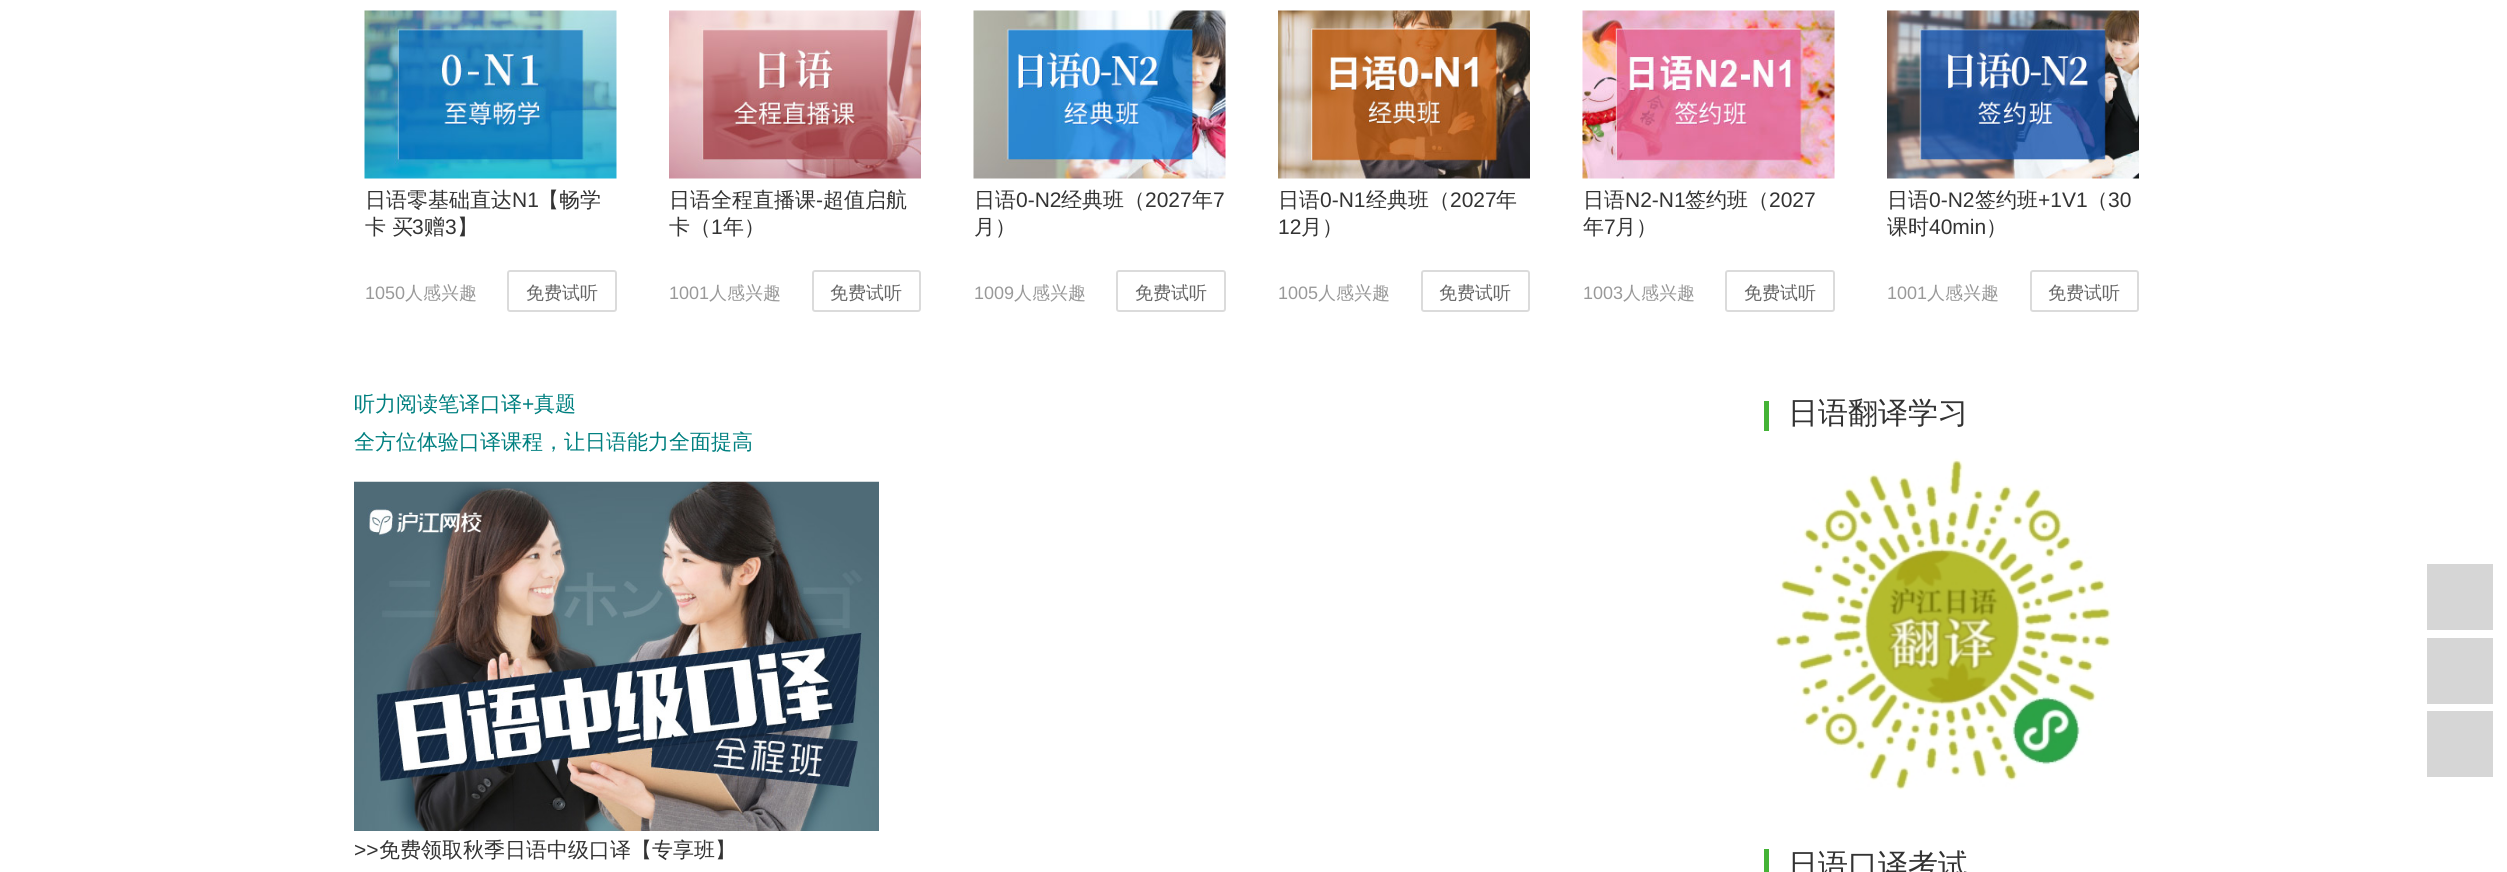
import math
import cairo

surface = cairo.ImageSurface(cairo.FORMAT_RGB24, 2507, 872)
ctx = cairo.Context(surface)
options = cairo.FontOptions()
options.set_hint_metrics(cairo.HINT_METRICS_OFF)
options.set_hint_style(cairo.HINT_STYLE_NONE)
ctx.set_font_options(options)
ctx.set_miter_limit(4)


def set_color(code):
    ctx.set_source_rgb(*(v / 255 for v in bytes.fromhex(code[-6:])))


def draw_text(x, y, s, family, size, color, bold=False, italic=False):
    ctx.select_font_face(family, cairo.FONT_SLANT_ITALIC if italic else cairo.FONT_SLANT_NORMAL, cairo.FONT_WEIGHT_BOLD if bold else cairo.FONT_WEIGHT_NORMAL)
    ctx.set_font_size(size)
    set_color(color)
    ctx.move_to(x, y)
    ctx.show_text(s)


def fill_rect(x, y, w, h, color):
    set_color(color)
    ctx.rectangle(x, y, w, h)
    ctx.fill()


def rounded_rect(x, y, w, h, r):
    ctx.new_sub_path()
    for i, (u, v) in enumerate([(x + w - r, y + h - r), (x + r, y + h - r), (x + r, y + r), (x + w - r, y + r)]):
        ctx.arc(u, v, r, i * math.pi / 2, (i + 1) * math.pi / 2)
    ctx.close_path()


def draw_image(path, x, y, w, h):
    ctx.save()
    ctx.set_source_surface(cairo.ImageSurface.create_from_png(path), x, y)
    ctx.rectangle(x, y, w, h)
    ctx.fill()
    ctx.restore()


set_color("#ffffff")
ctx.paint()
draw_image("assets/img1.png", 364, 10, 253, 169)
draw_text(365, 207, "日语零基础直达", "WenQuanYi Zen Hei Medium", 21, "#333333")
draw_text(512, 207, "N1", "Liberation Sans", 21, "#333333")
draw_text(538, 207, "【畅学", "WenQuanYi Zen Hei Medium", 21, "#333333")
draw_text(365, 234, "卡 买", "WenQuanYi Zen Hei Medium", 21, "#333333")
draw_text(412, 234, "3", "Liberation Sans", 21, "#333333")
draw_text(424, 234, "赠", "WenQuanYi Zen Hei Medium", 21, "#333333")
draw_text(445, 234, "3", "Liberation Sans", 21, "#333333")
draw_text(457, 234, "】", "WenQuanYi Zen Hei Medium", 21, "#333333")
draw_text(365, 299, "1050", "Liberation Sans", 18, "#999999")
draw_text(405, 299, "人感兴趣", "WenQuanYi Zen Hei Medium", 18, "#999999")
rounded_rect(508, 271, 108, 40, 2)
set_color("#dbdbdb")
ctx.stroke()
draw_text(526, 299, "免费试听", "WenQuanYi Zen Hei Medium", 18, "#656565")
draw_image("assets/img2.png", 669, 10, 252, 169)
draw_text(669, 207, "日语全程直播课", "WenQuanYi Zen Hei Medium", 21, "#333333")
draw_text(816, 207, "-", "Liberation Sans", 21, "#333333")
draw_text(823, 207, "超值启航", "WenQuanYi Zen Hei Medium", 21, "#333333")
draw_text(669, 234, "卡（", "WenQuanYi Zen Hei Medium", 21, "#333333")
draw_text(711, 234, "1", "Liberation Sans", 21, "#333333")
draw_text(723, 234, "年）", "WenQuanYi Zen Hei Medium", 21, "#333333")
draw_text(669, 299, "1001", "Liberation Sans", 18, "#999999")
draw_text(709, 299, "人感兴趣", "WenQuanYi Zen Hei Medium", 18, "#999999")
rounded_rect(813, 271, 107, 40, 2)
set_color("#dbdbdb")
ctx.stroke()
draw_text(830, 299, "免费试听", "WenQuanYi Zen Hei Medium", 18, "#656565")
draw_image("assets/img3.png", 973, 10, 253, 169)
draw_text(974, 207, "日语", "WenQuanYi Zen Hei Medium", 21, "#333333")
draw_text(1016, 207, "0-N2", "Liberation Sans", 21, "#333333")
draw_text(1061, 207, "经典班（", "WenQuanYi Zen Hei Medium", 21, "#333333")
draw_text(1145, 207, "2027", "Liberation Sans", 21, "#333333")
draw_text(1192, 207, "年", "WenQuanYi Zen Hei Medium", 21, "#333333")
draw_text(1213, 207, "7", "Liberation Sans", 21, "#333333")
draw_text(974, 234, "月）", "WenQuanYi Zen Hei Medium", 21, "#333333")
draw_text(974, 299, "1009", "Liberation Sans", 18, "#999999")
draw_text(1014, 299, "人感兴趣", "WenQuanYi Zen Hei Medium", 18, "#999999")
rounded_rect(1117, 271, 108, 40, 2)
set_color("#dbdbdb")
ctx.stroke()
draw_text(1135, 299, "免费试听", "WenQuanYi Zen Hei Medium", 18, "#656565")
draw_image("assets/img4.png", 1278, 10, 252, 169)
draw_text(1278, 207, "日语", "WenQuanYi Zen Hei Medium", 21, "#333333")
draw_text(1320, 207, "0-N1", "Liberation Sans", 21, "#333333")
draw_text(1366, 207, "经典班（", "WenQuanYi Zen Hei Medium", 21, "#333333")
draw_text(1450, 207, "2027", "Liberation Sans", 21, "#333333")
draw_text(1496, 207, "年", "WenQuanYi Zen Hei Medium", 21, "#333333")
draw_text(1278, 234, "12", "Liberation Sans", 21, "#333333")
draw_text(1301, 234, "月）", "WenQuanYi Zen Hei Medium", 21, "#333333")
draw_text(1278, 299, "1005", "Liberation Sans", 18, "#999999")
draw_text(1318, 299, "人感兴趣", "WenQuanYi Zen Hei Medium", 18, "#999999")
rounded_rect(1422, 271, 107, 40, 2)
set_color("#dbdbdb")
ctx.stroke()
draw_text(1439, 299, "免费试听", "WenQuanYi Zen Hei Medium", 18, "#656565")
draw_image("assets/img5.png", 1582, 10, 253, 169)
draw_text(1583, 207, "日语", "WenQuanYi Zen Hei Medium", 21, "#333333")
draw_text(1625, 207, "N2-N1", "Liberation Sans", 21, "#333333")
draw_text(1685, 207, "签约班（", "WenQuanYi Zen Hei Medium", 21, "#333333")
draw_text(1769, 207, "2027", "Liberation Sans", 21, "#333333")
draw_text(1583, 234, "年", "WenQuanYi Zen Hei Medium", 21, "#333333")
draw_text(1604, 234, "7", "Liberation Sans", 21, "#333333")
draw_text(1615, 234, "月）", "WenQuanYi Zen Hei Medium", 21, "#333333")
draw_text(1583, 299, "1003", "Liberation Sans", 18, "#999999")
draw_text(1623, 299, "人感兴趣", "WenQuanYi Zen Hei Medium", 18, "#999999")
rounded_rect(1726, 271, 108, 40, 2)
set_color("#dbdbdb")
ctx.stroke()
draw_text(1744, 299, "免费试听", "WenQuanYi Zen Hei Medium", 18, "#656565")
draw_image("assets/img6.png", 1887, 10, 252, 169)
draw_text(1887, 207, "日语", "WenQuanYi Zen Hei Medium", 21, "#333333")
draw_text(1929, 207, "0-N2", "Liberation Sans", 21, "#333333")
draw_text(1975, 207, "签约班", "WenQuanYi Zen Hei Medium", 21, "#333333")
draw_text(2038, 207, "+1V1", "Liberation Sans", 21, "#333333")
draw_text(2087, 207, "（", "WenQuanYi Zen Hei Medium", 21, "#333333")
draw_text(2108, 207, "30", "Liberation Sans", 21, "#333333")
draw_text(1887, 234, "课时", "WenQuanYi Zen Hei Medium", 21, "#333333")
draw_text(1929, 234, "40min", "Liberation Sans", 21, "#333333")
draw_text(1986, 234, "）", "WenQuanYi Zen Hei Medium", 21, "#333333")
draw_text(1887, 299, "1001", "Liberation Sans", 18, "#999999")
draw_text(1927, 299, "人感兴趣", "WenQuanYi Zen Hei Medium", 18, "#999999")
rounded_rect(2031, 271, 107, 40, 2)
set_color("#dbdbdb")
ctx.stroke()
draw_text(2048, 299, "免费试听", "WenQuanYi Zen Hei Medium", 18, "#656565")
draw_text(354, 411, "听力阅读笔译口译", "WenQuanYi Zen Hei Medium", 21, "#008080")
draw_text(522, 411, "+", "Liberation Sans", 21, "#008080")
draw_text(534, 411, "真题", "WenQuanYi Zen Hei Medium", 21, "#008080")
draw_text(354, 449, "全方位体验口译课程，让日语能力全面提高", "WenQuanYi Zen Hei Medium", 21, "#008080")
draw_image("assets/img7.png", 354, 481, 525, 350)
draw_text(354, 857, ">>", "Liberation Sans", 21, "#333333")
draw_text(379, 857, "免费领取秋季日语中级口译【专享班】", "WenQuanYi Zen Hei Medium", 21, "#333333")
fill_rect(1764, 401, 5, 30, "#44b336")
draw_text(1788, 423, "日语翻译学习", "WenQuanYi Zen Hei Medium", 30, "#333333")
draw_image("assets/img8.png", 1774, 458, 337, 332)
fill_rect(1764, 849, 5, 23, "#44b336")
draw_text(1788, 875, "日语口译考试", "WenQuanYi Zen Hei Medium", 30, "#333333")
fill_rect(2427, 564, 66, 66, "#d6d6d6")
fill_rect(2427, 638, 66, 66, "#d6d6d6")
fill_rect(2427, 711, 66, 66, "#d6d6d6")
surface.write_to_png("output.png")
